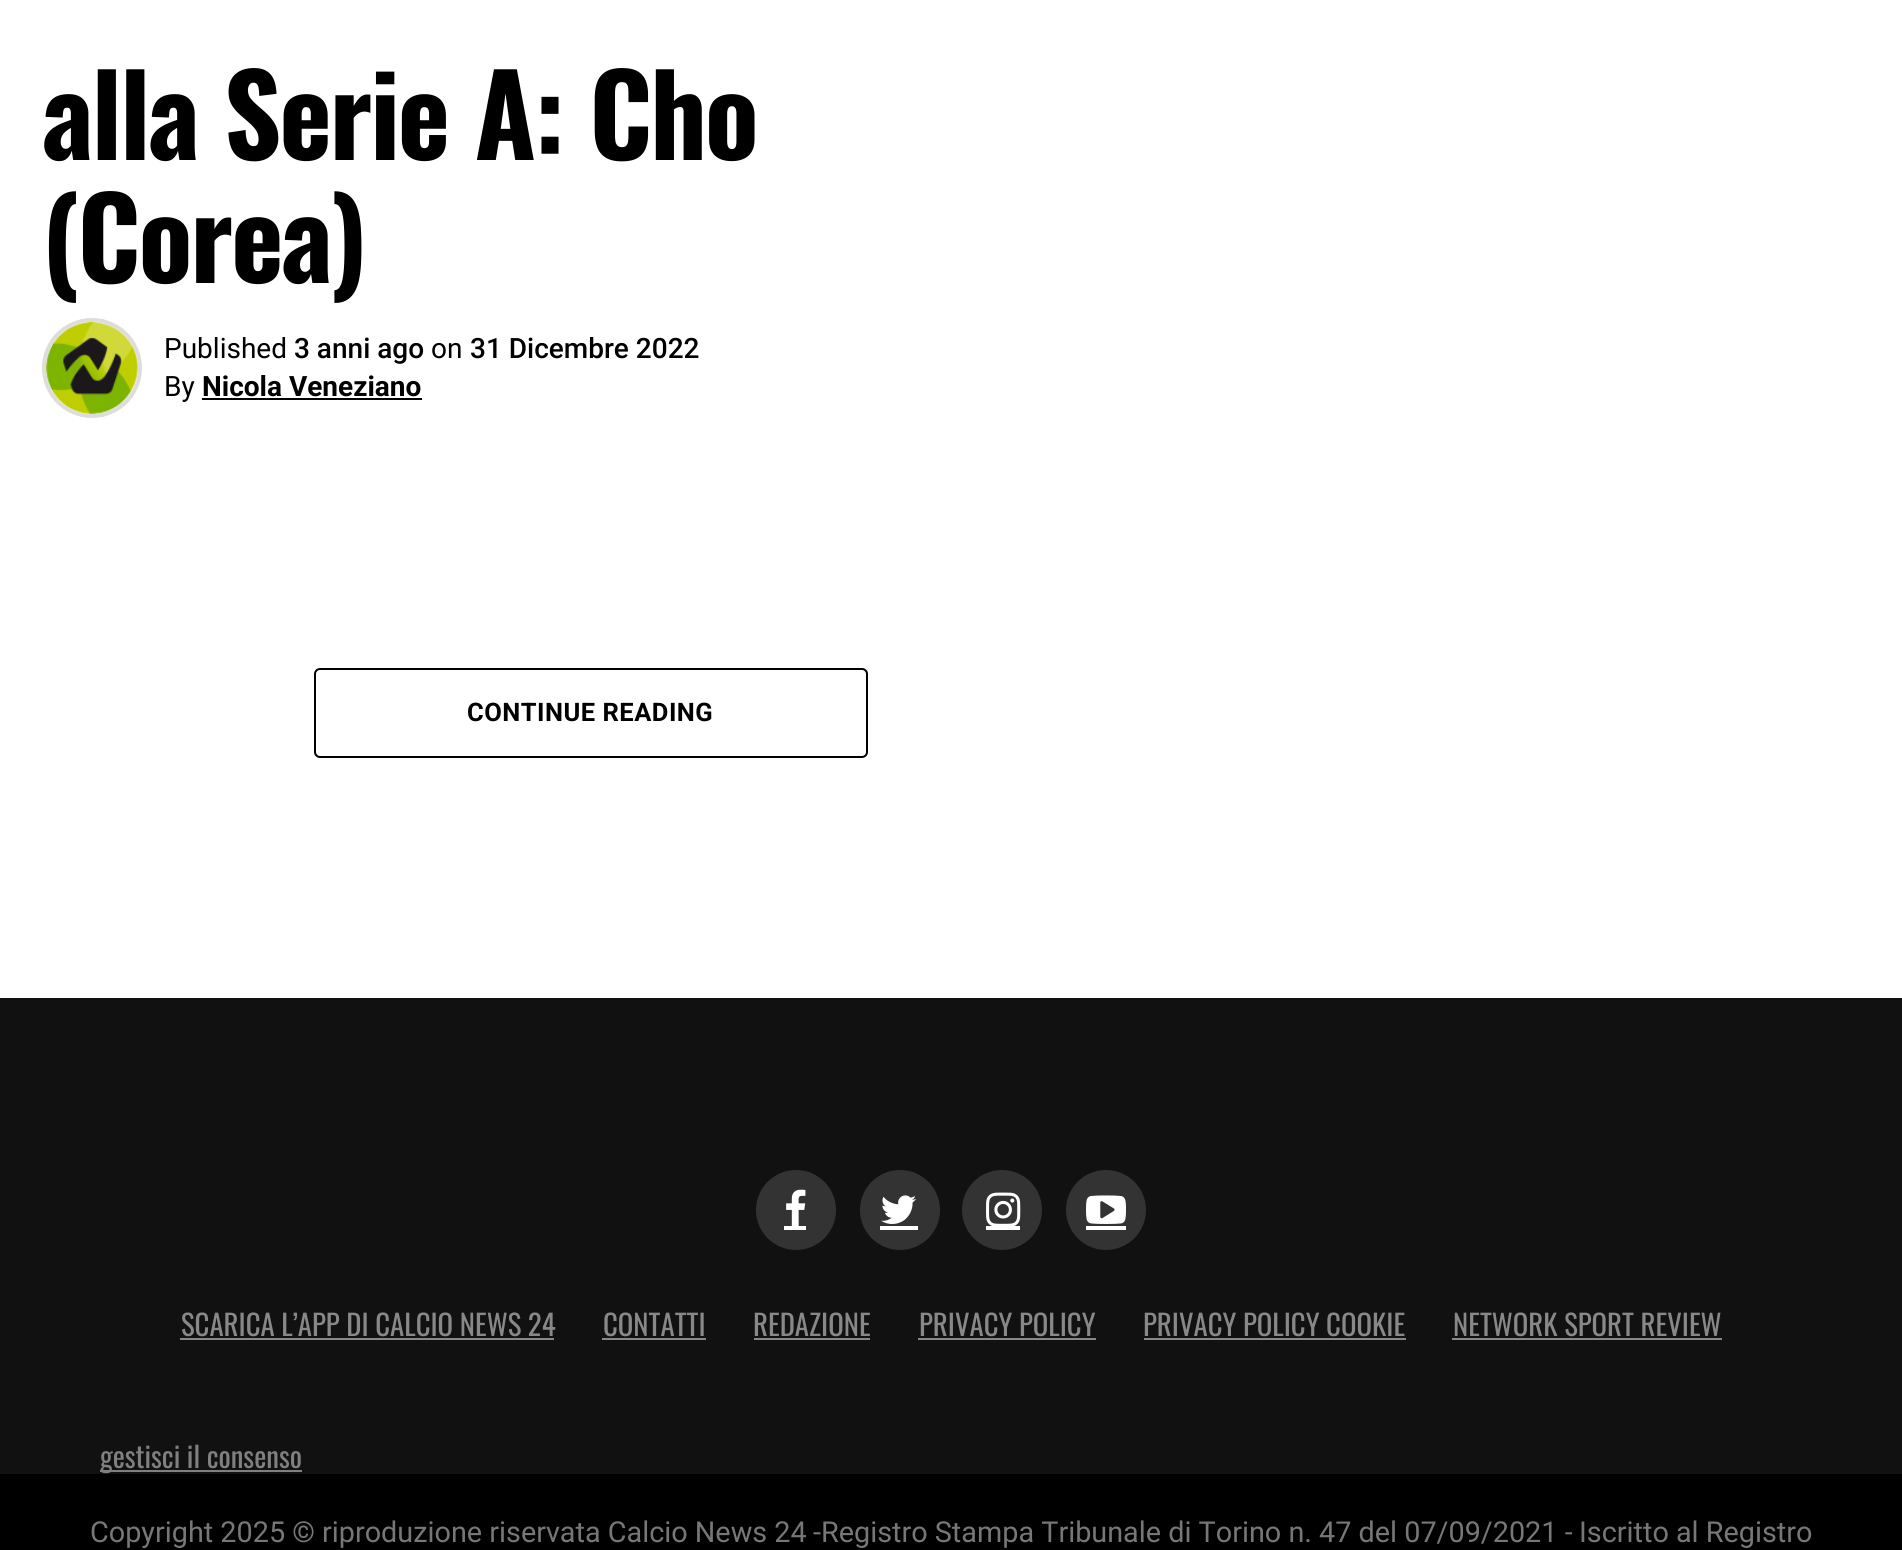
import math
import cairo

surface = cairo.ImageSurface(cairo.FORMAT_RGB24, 1902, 1550)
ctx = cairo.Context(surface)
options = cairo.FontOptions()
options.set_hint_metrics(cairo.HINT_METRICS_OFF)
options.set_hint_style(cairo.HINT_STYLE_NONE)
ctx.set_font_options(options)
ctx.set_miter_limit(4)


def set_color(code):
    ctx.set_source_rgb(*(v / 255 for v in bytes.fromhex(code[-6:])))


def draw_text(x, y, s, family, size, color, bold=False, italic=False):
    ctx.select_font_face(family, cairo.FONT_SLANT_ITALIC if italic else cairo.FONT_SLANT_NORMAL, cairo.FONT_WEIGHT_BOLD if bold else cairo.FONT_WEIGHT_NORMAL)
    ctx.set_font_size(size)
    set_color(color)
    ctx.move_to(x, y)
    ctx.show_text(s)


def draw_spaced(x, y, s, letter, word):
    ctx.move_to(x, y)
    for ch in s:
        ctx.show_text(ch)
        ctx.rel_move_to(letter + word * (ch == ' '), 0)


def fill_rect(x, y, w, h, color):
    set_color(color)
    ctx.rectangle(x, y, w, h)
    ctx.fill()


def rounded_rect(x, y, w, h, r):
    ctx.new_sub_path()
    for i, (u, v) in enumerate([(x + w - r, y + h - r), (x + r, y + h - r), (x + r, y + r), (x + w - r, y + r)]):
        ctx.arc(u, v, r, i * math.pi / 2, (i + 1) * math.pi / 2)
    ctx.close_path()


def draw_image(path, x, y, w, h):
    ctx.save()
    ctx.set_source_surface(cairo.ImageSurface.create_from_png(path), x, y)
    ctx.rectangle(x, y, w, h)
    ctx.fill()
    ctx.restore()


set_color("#ffffff")
ctx.paint()
ctx.select_font_face("Oswald", cairo.FONT_SLANT_NORMAL, cairo.FONT_WEIGHT_BOLD)
ctx.set_font_size(112)
set_color("#000000")
draw_spaced(42, 160, "alla Serie A: Cho", -2.25, 0)
draw_spaced(42, 283, "(Corea)", -2.25, 0)
ctx.new_path()
ctx.arc(92, 368, 48, 0, 2 * math.pi)
set_color("#dddddd")
ctx.set_line_width(4)
ctx.stroke()
draw_image("assets/img1.png", 46, 322, 92, 92)
draw_text(164, 358, "Published", "Roboto", 28, "#000000")
draw_text(294, 358, "3 anni ago", "Roboto Medium", 28, "#000000")
draw_text(431, 358, "on", "Roboto", 28, "#000000")
draw_text(470, 358, "31 Dicembre 2022", "Roboto Medium", 28, "#000000")
draw_text(164, 396, "By", "Roboto", 28, "#000000")
draw_text(202, 396, "Nicola Veneziano", "Roboto", 28, "#000000", bold=True)
fill_rect(202, 398, 220, 2, "#000000")
rounded_rect(315, 669, 552, 88, 5)
ctx.set_line_width(2)
ctx.stroke()
ctx.set_font_size(25.5)
draw_spaced(467, 721, "CONTINUE READING", 0.5, 0)
fill_rect(0, 998, 1902, 476, "#111111")
set_color("#333333")
ctx.new_path()
ctx.arc(796, 1210, 40, 0, 2 * math.pi)
ctx.fill()
draw_image("assets/img2.png", 786, 1189, 20, 37)
fill_rect(784, 1226, 22, 4, "#ffffff")
set_color("#333333")
ctx.arc(900, 1210, 40, 0, 2 * math.pi)
ctx.fill()
draw_image("assets/img3.png", 881, 1195, 35, 29)
fill_rect(880, 1226, 38, 4, "#ffffff")
set_color("#333333")
ctx.arc(1002, 1210, 40, 0, 2 * math.pi)
ctx.fill()
draw_image("assets/img4.png", 986, 1192, 35, 34)
fill_rect(986, 1226, 34, 4, "#ffffff")
set_color("#333333")
ctx.arc(1106, 1210, 40, 0, 2 * math.pi)
ctx.fill()
draw_image("assets/img5.png", 1086, 1195, 40, 29)
fill_rect(1086, 1226, 40, 4, "#ffffff")
draw_text(181, 1336, "SCARICA L’APP DI CALCIO NEWS 24", "Oswald", 28.8, "#888888")
fill_rect(180, 1338, 374, 2, "#888888")
draw_text(603, 1336, "CONTATTI", "Oswald", 28.8, "#888888")
fill_rect(602, 1338, 104, 2, "#888888")
draw_text(753, 1336, "REDAZIONE", "Oswald", 28.8, "#888888")
fill_rect(754, 1338, 116, 2, "#888888")
draw_text(919, 1336, "PRIVACY POLICY", "Oswald", 28.8, "#888888")
fill_rect(918, 1338, 178, 2, "#888888")
draw_text(1143, 1336, "PRIVACY POLICY COOKIE", "Oswald", 28.8, "#888888")
fill_rect(1144, 1338, 262, 2, "#888888")
draw_text(1453, 1336, "NETWORK SPORT REVIEW", "Oswald", 28.8, "#888888")
fill_rect(1452, 1338, 270, 2, "#888888")
fill_rect(100, 1470, 202, 2, "#808080")
draw_text(100, 1468, "gestisci il consenso", "Oswald", 28.8, "#808080")
fill_rect(0, 1474, 1902, 76, "#000000")
draw_text(90, 1542, "Copyright 2025 © riproduzione riservata Calcio News 24", "Roboto", 28.8, "#777777")
draw_text(813, 1542, "-Registro Stampa Tribunale di Torino n. 47 del 07/09/2021 -", "Roboto", 28.8, "#777777")
draw_text(1579, 1542, "Iscritto al Registro", "Roboto", 28.8, "#777777")
surface.write_to_png("output.png")
